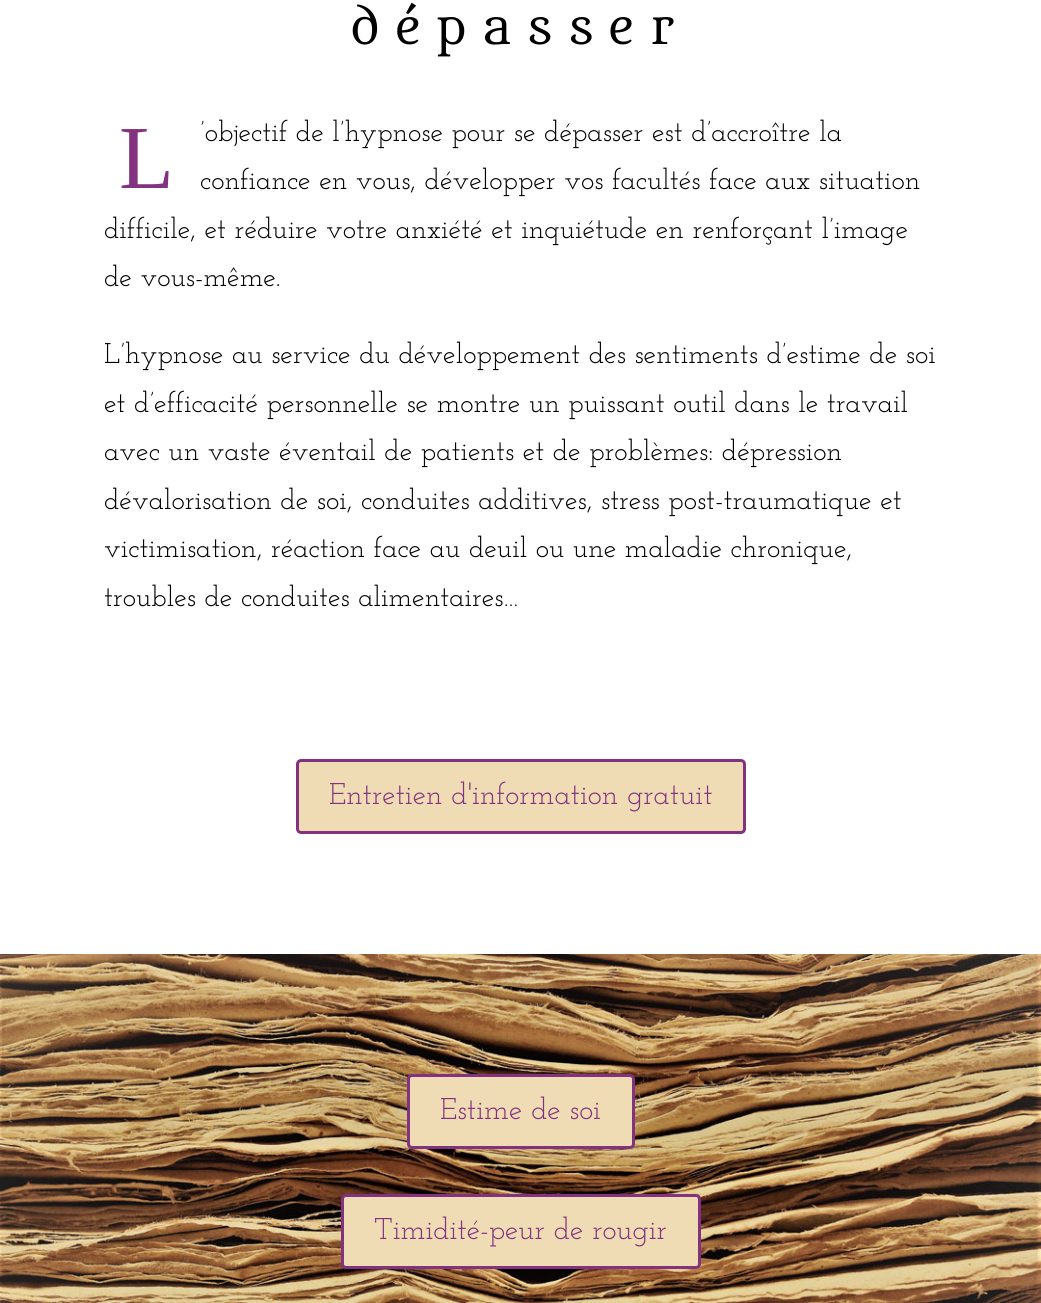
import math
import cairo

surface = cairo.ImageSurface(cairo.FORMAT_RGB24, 1041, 1303)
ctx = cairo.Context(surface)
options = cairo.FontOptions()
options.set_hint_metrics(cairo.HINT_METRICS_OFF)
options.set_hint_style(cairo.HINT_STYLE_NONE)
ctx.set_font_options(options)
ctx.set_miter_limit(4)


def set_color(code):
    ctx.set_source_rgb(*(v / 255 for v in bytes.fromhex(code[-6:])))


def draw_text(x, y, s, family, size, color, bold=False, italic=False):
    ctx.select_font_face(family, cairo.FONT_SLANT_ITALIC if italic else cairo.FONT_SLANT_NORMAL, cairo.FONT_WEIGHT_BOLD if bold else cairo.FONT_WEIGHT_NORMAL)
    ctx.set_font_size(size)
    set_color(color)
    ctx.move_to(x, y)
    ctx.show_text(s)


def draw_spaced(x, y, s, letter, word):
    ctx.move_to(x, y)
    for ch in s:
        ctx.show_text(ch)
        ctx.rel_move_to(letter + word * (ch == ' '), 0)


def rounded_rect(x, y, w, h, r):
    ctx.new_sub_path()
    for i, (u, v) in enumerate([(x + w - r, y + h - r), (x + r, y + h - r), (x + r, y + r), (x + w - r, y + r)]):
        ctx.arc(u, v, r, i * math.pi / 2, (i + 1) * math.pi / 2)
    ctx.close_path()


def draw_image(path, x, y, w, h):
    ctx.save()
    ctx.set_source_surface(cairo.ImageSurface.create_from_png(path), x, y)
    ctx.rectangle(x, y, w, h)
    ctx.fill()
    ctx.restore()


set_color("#ffffff")
ctx.paint()
ctx.select_font_face("Metamorphous")
ctx.set_font_size(45)
set_color("#000000")
draw_spaced(350, 44, "dépasser", 15, 0)
draw_text(119, 188, "L", "Liberation Serif", 90, "#82327f")
draw_text(200, 141, "’objectif de l’hypnose pour se dépasser est d’accroître la", "Josefin Slab", 28.5, "#000000")
draw_text(200, 189, "confiance en vous, développer vos facultés face aux situation", "Josefin Slab", 28.5, "#000000")
draw_text(104, 238, "difficile, et réduire votre anxiété et inquiétude en renforçant l’image", "Josefin Slab", 28.5, "#000000")
draw_text(104, 286, "de vous-même.", "Josefin Slab", 28.5, "#000000")
draw_text(104, 363, "L’hypnose au service du développement des sentiments d’estime de soi", "Josefin Slab", 28.5, "#000000")
draw_text(104, 412, "et d’efficacité personnelle se montre un puissant outil dans le travail", "Josefin Slab", 28.5, "#000000")
draw_text(104, 460, "avec un vaste éventail de patients et de problèmes: dépression", "Josefin Slab", 28.5, "#000000")
draw_text(104, 509, "dévalorisation de soi, conduites additives, stress post-traumatique et", "Josefin Slab", 28.5, "#000000")
draw_text(104, 557, "victimisation, réaction face au deuil ou une maladie chronique,", "Josefin Slab", 28.5, "#000000")
draw_text(104, 606, "troubles de conduites alimentaires…", "Josefin Slab", 28.5, "#000000")
set_color("#f0dcb4")
rounded_rect(297.5, 760.5, 447, 72, 3.5)
ctx.fill_preserve()
set_color("#82327f")
ctx.set_line_width(3)
ctx.stroke()
draw_text(329, 804, "Entretien d'information gratuit", "Josefin Slab", 30, "#82327f")
draw_image("assets/img1.png", 0, 954, 1041, 349)
set_color("#f0dcb4")
rounded_rect(408.5, 1075.5, 225, 72, 3.5)
ctx.fill_preserve()
set_color("#82327f")
ctx.stroke()
draw_text(440, 1119, "Estime de soi", "Josefin Slab", 30, "#82327f")
set_color("#f0dcb4")
rounded_rect(342.5, 1195.5, 357, 72, 3.5)
ctx.fill_preserve()
set_color("#82327f")
ctx.stroke()
draw_text(374, 1239, "Timidité-peur de rougir", "Josefin Slab", 30, "#82327f")
surface.write_to_png("output.png")
